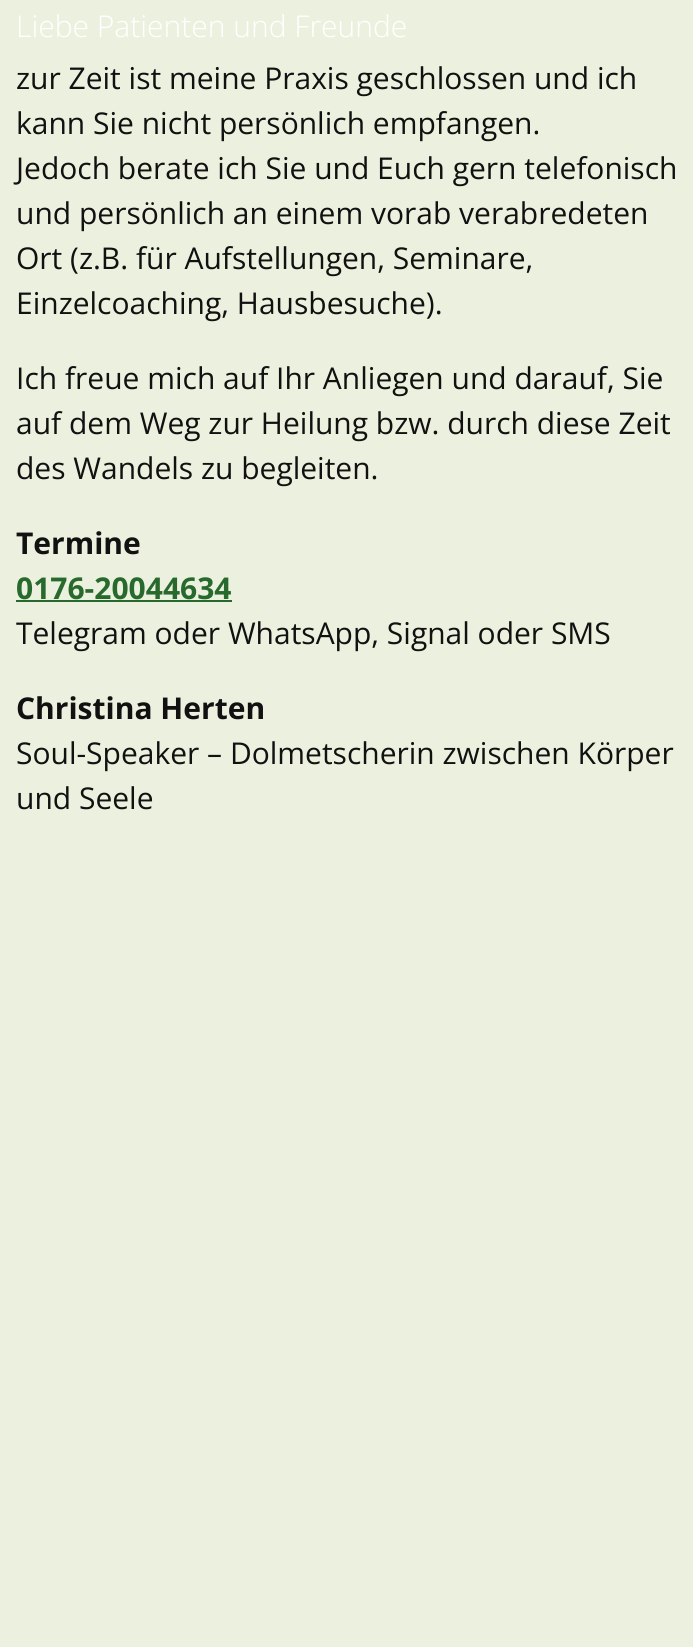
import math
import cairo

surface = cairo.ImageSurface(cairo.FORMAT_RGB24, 693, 1647)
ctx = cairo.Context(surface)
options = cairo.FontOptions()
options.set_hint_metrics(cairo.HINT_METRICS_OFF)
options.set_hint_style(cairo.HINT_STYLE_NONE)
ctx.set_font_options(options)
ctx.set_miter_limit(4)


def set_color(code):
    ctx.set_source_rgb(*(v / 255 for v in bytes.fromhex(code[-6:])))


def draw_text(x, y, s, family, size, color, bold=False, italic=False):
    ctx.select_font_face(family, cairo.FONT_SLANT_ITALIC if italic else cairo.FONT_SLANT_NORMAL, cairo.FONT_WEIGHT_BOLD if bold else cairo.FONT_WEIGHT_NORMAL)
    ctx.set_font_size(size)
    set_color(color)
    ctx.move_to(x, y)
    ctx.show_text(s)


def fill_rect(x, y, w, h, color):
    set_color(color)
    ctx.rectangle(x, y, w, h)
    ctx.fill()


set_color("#ebf1de")
ctx.paint()
draw_text(16, 37, "Liebe Patienten und Freunde", "Open Sans Light", 30, "#ffffff")
draw_text(16, 89, "zur Zeit ist meine Praxis geschlossen und ich", "Open Sans", 30, "#111111")
draw_text(16, 134, "kann Sie nicht persönlich empfangen.", "Open Sans", 30, "#111111")
draw_text(16, 179, "Jedoch berate ich Sie und Euch gern telefonisch", "Open Sans", 30, "#111111")
draw_text(16, 224, "und persönlich an einem vorab verabredeten", "Open Sans", 30, "#111111")
draw_text(16, 269, "Ort (z.B. für Aufstellungen, Seminare,", "Open Sans", 30, "#111111")
draw_text(16, 314, "Einzelcoaching, Hausbesuche).", "Open Sans", 30, "#111111")
draw_text(16, 389, "Ich freue mich auf Ihr Anliegen und darauf, Sie", "Open Sans", 30, "#111111")
draw_text(16, 434, "auf dem Weg zur Heilung bzw. durch diese Zeit", "Open Sans", 30, "#111111")
draw_text(16, 479, "des Wandels zu begleiten.", "Open Sans", 30, "#111111")
draw_text(16, 554, "Termine", "Open Sans", 30, "#111111", bold=True)
draw_text(16, 599, "0176-20044634", "Open Sans", 30, "#28692d", bold=True)
fill_rect(16, 600, 216, 2, "#28692d")
draw_text(16, 644, "Telegram oder WhatsApp, Signal oder SMS", "Open Sans", 30, "#111111")
draw_text(16, 719, "Christina Herten", "Open Sans", 30, "#111111", bold=True)
draw_text(16, 764, "Soul-Speaker – Dolmetscherin zwischen Körper", "Open Sans", 30, "#111111")
draw_text(16, 809, "und Seele", "Open Sans", 30, "#111111")
surface.write_to_png("output.png")
